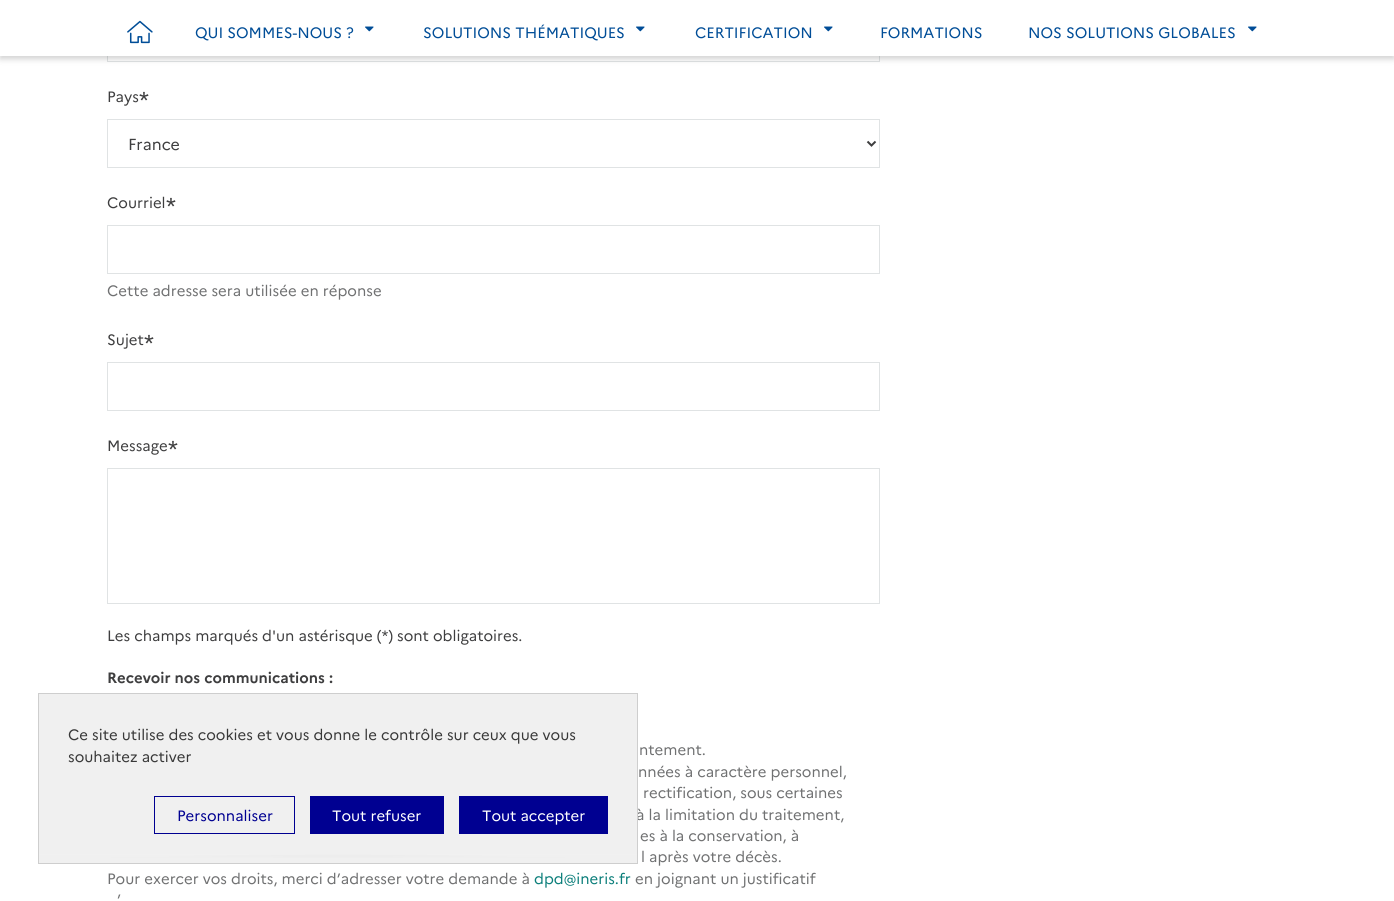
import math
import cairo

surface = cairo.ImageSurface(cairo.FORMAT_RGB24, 1394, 901)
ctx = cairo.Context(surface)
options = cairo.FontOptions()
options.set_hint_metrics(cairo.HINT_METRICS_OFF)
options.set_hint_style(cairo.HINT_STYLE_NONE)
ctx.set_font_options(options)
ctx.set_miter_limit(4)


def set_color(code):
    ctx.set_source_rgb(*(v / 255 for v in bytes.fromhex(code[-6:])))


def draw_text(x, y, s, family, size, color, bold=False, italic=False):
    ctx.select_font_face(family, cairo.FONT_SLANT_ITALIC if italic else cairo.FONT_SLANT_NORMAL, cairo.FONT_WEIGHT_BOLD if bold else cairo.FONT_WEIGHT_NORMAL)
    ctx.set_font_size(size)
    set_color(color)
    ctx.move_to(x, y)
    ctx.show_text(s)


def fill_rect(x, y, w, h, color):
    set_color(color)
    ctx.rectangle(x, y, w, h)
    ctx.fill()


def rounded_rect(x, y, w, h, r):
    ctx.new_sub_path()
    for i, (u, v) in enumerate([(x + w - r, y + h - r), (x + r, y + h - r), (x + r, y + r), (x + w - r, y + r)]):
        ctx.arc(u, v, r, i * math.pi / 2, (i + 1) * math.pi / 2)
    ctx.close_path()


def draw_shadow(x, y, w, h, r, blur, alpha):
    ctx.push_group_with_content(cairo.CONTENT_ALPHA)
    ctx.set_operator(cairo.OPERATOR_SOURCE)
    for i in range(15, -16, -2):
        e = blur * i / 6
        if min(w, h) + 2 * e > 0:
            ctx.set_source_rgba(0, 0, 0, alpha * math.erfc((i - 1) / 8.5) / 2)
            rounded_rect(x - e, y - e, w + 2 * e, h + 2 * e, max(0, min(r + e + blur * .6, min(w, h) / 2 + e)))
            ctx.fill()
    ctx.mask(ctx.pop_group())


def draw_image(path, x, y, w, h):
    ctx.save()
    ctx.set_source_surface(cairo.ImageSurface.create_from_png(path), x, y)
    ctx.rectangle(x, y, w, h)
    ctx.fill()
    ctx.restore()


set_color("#ffffff")
ctx.paint()
ctx.rectangle(107.5, 13.5, 772, 48)
set_color("#e0e3e4")
ctx.set_line_width(1)
ctx.stroke()
set_color("#000000")
draw_shadow(0, 3, 1394, 56, 0, 3, 0.18)
fill_rect(0, 0, 1394, 56, "#ffffff")
draw_image("assets/img1.png", 127, 20, 26, 24)
draw_text(195, 38, "QUI SOMMES-NOUS ?", "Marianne", 15, "#004d97")
draw_image("assets/img2.png", 365, 26, 9, 6)
draw_text(423, 38, "SOLUTIONS THÉMATIQUES", "Marianne", 15, "#004d97")
draw_image("assets/img2.png", 636, 26, 9, 6)
draw_text(695, 38, "CERTIFICATION", "Marianne", 15, "#004d97")
draw_image("assets/img2.png", 824, 26, 9, 6)
draw_text(880, 38, "FORMATIONS", "Marianne", 15, "#004d97")
draw_text(1028, 38, "NOS SOLUTIONS GLOBALES", "Marianne", 15, "#004d97")
draw_image("assets/img2.png", 1248, 26, 9, 6)
draw_text(107, 102, "Pays", "Marianne", 15, "#3e3e3f")
draw_text(139, 108, "*", "Marianne", 23, "#3e3e3f")
ctx.rectangle(107.5, 119.5, 772, 48)
set_color("#e0e3e4")
ctx.stroke()
ctx.new_path()
ctx.move_to(867.5, 141.5)
ctx.line_to(871.5, 145.5)
ctx.line_to(875.5, 141.5)
set_color("#3e3e3f")
ctx.set_line_width(2)
ctx.stroke()
draw_text(128, 150, "France", "Marianne", 16, "#3e3e3f")
draw_text(107, 208, "Courriel", "Marianne", 15, "#3e3e3f")
draw_text(166, 214, "*", "Marianne", 23, "#3e3e3f")
ctx.rectangle(107.5, 225.5, 772, 48)
set_color("#e0e3e4")
ctx.set_line_width(1)
ctx.stroke()
draw_text(107, 296, "Cette adresse sera utilisée en réponse", "Marianne", 15, "#707172")
draw_text(107, 345, "Sujet", "Marianne", 15, "#3e3e3f")
draw_text(144, 351, "*", "Marianne", 23, "#3e3e3f")
ctx.rectangle(107.5, 362.5, 772, 48)
set_color("#e0e3e4")
ctx.stroke()
draw_text(107, 451, "Message", "Marianne", 15, "#3e3e3f")
draw_text(168, 457, "*", "Marianne", 23, "#3e3e3f")
ctx.rectangle(107.5, 468.5, 772, 135)
set_color("#e0e3e4")
ctx.stroke()
draw_text(107, 641, "Les champs marqués d'un astérisque (*) sont obligatoires.", "Marianne", 15, "#3e3e3f")
draw_text(107, 683, "Recevoir nos communications :", "Marianne", 15, "#3e3e3f", bold=True)
draw_text(639, 755, "ntement.", "Marianne", 15, "#707172")
draw_text(638, 777, "nnées à caractère personnel,", "Marianne", 15, "#707172")
draw_text(643, 798, "rectification, sous certaines", "Marianne", 15, "#707172")
draw_text(636, 820, "à la limitation du traitement,", "Marianne", 15, "#707172")
draw_text(640, 841, "es à la conservation, à", "Marianne", 15, "#707172")
draw_text(641, 862, "l après votre décès.", "Marianne", 15, "#707172")
draw_text(107, 884, "Pour exercer vos droits, merci d’adresser votre demande à", "Marianne", 15, "#707172")
draw_text(534, 884, "dpd@ineris.fr", "Marianne", 15, "#0b7e7a")
draw_text(635, 884, "en joignant un justificatif", "Marianne", 15, "#707172")
draw_text(117, 905, "’", "Marianne", 15, "#707172")
fill_rect(39, 699, 598, 155, "#f0f0f0")
gradient = cairo.RadialGradient(0, 0, 0, 0, 0, 1)
gradient.set_matrix(cairo.Matrix(1 / 300, 0, 0, 1 / 10, -1 * 338 / 300, -1 * 864 / 10))
gradient.add_color_stop_rgba(0, 0.537, 0.537, 0.537, 1)
gradient.add_color_stop_rgba(1, 0.941, 0.941, 0.941, 1)
ctx.set_source(gradient)
ctx.rectangle(39, 854, 598, 4)
ctx.fill()
gradient = cairo.LinearGradient(338, 846, 338, 864)
gradient.add_color_stop_rgba(0, 0.941, 0.941, 0.941, 0)
gradient.add_color_stop_rgba(0.66, 0.941, 0.941, 0.941, 1)
ctx.set_source(gradient)
ctx.rectangle(39, 854, 598, 9)
ctx.fill()
gradient = cairo.LinearGradient(338, 693, 338, 711)
gradient.add_color_stop_rgba(0.33, 0.941, 0.941, 0.941, 1)
gradient.add_color_stop_rgba(1, 0.941, 0.941, 0.941, 0)
ctx.set_source(gradient)
ctx.rectangle(39, 694, 598, 5)
ctx.fill()
ctx.rectangle(38.5, 693.5, 599, 170)
set_color("#cecece")
ctx.stroke()
draw_text(68, 740, "Ce site utilise des cookies et vous donne le contrôle sur ceux que vous", "Marianne", 15, "#383838")
draw_text(68, 762, "souhaitez activer", "Marianne", 15, "#383838")
ctx.rectangle(154.5, 796.5, 140, 37)
set_color("#000091")
ctx.stroke()
draw_text(177, 821, "Personnaliser", "Marianne", 15, "#000091")
fill_rect(310, 796, 134, 38, "#000091")
draw_text(332, 821, "Tout refuser", "Marianne", 15, "#ffffff")
fill_rect(459, 796, 149, 38, "#000091")
draw_text(482, 821, "Tout accepter", "Marianne", 15, "#ffffff")
surface.write_to_png("output.png")
